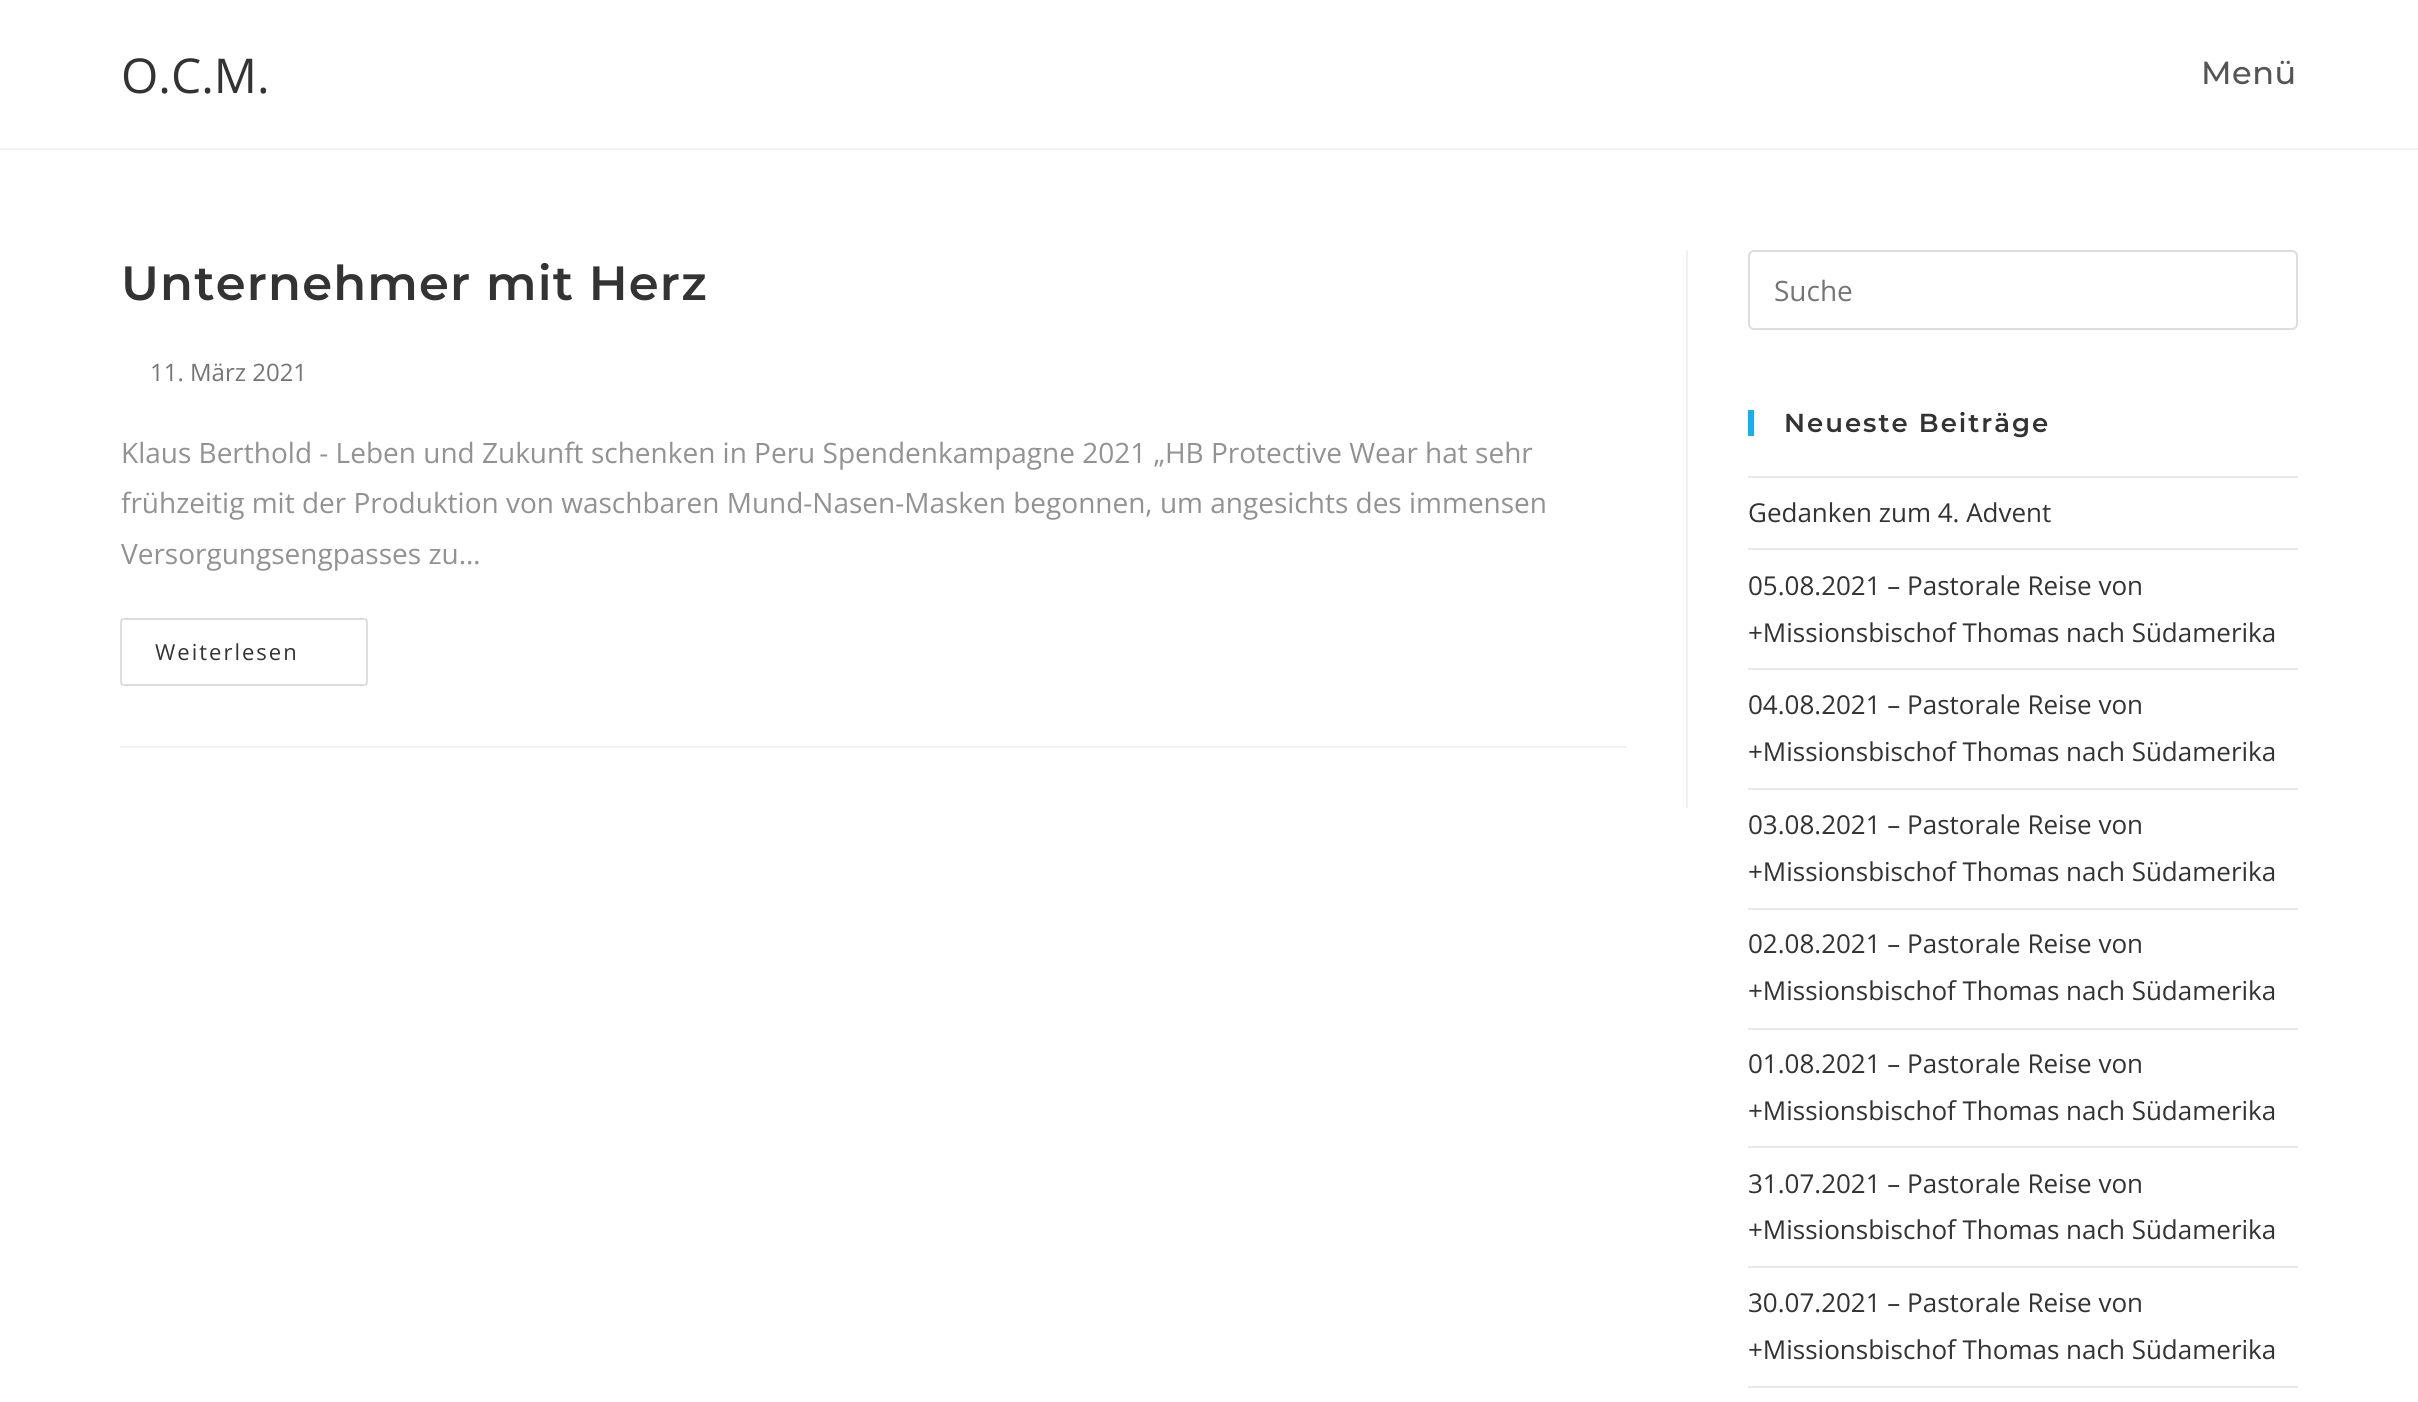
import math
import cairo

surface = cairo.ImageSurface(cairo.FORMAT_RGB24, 2418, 1402)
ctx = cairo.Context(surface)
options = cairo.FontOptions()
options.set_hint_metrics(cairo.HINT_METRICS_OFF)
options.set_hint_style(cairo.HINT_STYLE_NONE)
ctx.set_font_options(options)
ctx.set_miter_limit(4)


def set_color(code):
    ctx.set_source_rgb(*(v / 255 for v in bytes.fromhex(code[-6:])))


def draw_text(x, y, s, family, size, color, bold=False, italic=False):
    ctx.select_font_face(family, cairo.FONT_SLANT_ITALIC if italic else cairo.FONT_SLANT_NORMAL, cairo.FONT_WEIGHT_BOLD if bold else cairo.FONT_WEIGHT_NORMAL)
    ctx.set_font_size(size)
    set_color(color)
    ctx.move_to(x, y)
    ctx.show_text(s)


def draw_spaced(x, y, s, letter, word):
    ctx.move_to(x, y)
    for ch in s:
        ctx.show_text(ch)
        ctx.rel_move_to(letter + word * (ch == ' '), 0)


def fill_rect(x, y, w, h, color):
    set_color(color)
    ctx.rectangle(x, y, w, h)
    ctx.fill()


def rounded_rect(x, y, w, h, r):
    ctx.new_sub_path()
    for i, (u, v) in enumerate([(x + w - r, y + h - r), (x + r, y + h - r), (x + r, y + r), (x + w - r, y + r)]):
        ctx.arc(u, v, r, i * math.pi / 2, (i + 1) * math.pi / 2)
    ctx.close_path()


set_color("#ffffff")
ctx.paint()
fill_rect(0, 148, 2418, 2, "#f1f1f1")
draw_text(121, 93, "O.C.M.", "Open Sans", 48, "#333333")
ctx.select_font_face("Montserrat Medium")
ctx.set_font_size(32)
set_color("#555555")
draw_spaced(2201, 84, "Menü", 0.5, 0)
fill_rect(1686, 250, 2, 558, "#f1f1f1")
fill_rect(120, 746, 1506, 2, "#f1f1f1")
ctx.select_font_face("Montserrat SemiBold")
ctx.set_font_size(48)
set_color("#333333")
draw_spaced(121, 300, "Unternehmer mit Herz", 1.2, 0)
draw_text(150, 381, "11. März 2021", "Open Sans", 24, "#757575")
draw_text(121, 463, "Klaus Berthold - Leben und Zukunft schenken in Peru Spendenkampagne 2021 „HB Protective Wear hat sehr", "Open Sans", 28, "#929292")
draw_text(121, 513, "frühzeitig mit der Produktion von waschbaren Mund-Nasen-Masken begonnen, um angesichts des immensen", "Open Sans", 28, "#929292")
draw_text(121, 564, "Versorgungsengpasses zu…", "Open Sans", 28, "#929292")
rounded_rect(121, 619, 246, 66, 3)
set_color("#dddddd")
ctx.stroke()
ctx.set_font_size(22)
set_color("#333333")
draw_spaced(155, 660, "Weiterlesen", 2, 0)
rounded_rect(1749, 251, 548, 78, 5)
set_color("#dddddd")
ctx.stroke()
draw_text(1774, 301, "Suche", "Open Sans", 28, "#757575")
fill_rect(1748, 410, 6, 26, "#13aff0")
ctx.select_font_face("Montserrat SemiBold")
ctx.set_font_size(26)
set_color("#333333")
draw_spaced(1784, 432, "Neueste Beiträge", 2, 0)
fill_rect(1748, 476, 550, 2, "#e9e9e9")
fill_rect(1748, 548, 550, 2, "#e9e9e9")
draw_text(1748, 522, "Gedanken zum 4. Advent", "Open Sans", 26, "#333333")
fill_rect(1748, 668, 550, 2, "#e9e9e9")
draw_text(1748, 595, "05.08.2021 – Pastorale Reise von", "Open Sans", 26, "#333333")
draw_text(1748, 642, "+Missionsbischof Thomas nach Südamerika", "Open Sans", 26, "#333333")
fill_rect(1748, 788, 550, 2, "#e9e9e9")
draw_text(1748, 714, "04.08.2021 – Pastorale Reise von", "Open Sans", 26, "#333333")
draw_text(1748, 761, "+Missionsbischof Thomas nach Südamerika", "Open Sans", 26, "#333333")
fill_rect(1748, 908, 550, 2, "#e9e9e9")
draw_text(1748, 834, "03.08.2021 – Pastorale Reise von", "Open Sans", 26, "#333333")
draw_text(1748, 881, "+Missionsbischof Thomas nach Südamerika", "Open Sans", 26, "#333333")
fill_rect(1748, 1028, 550, 2, "#e9e9e9")
draw_text(1748, 953, "02.08.2021 – Pastorale Reise von", "Open Sans", 26, "#333333")
draw_text(1748, 1000, "+Missionsbischof Thomas nach Südamerika", "Open Sans", 26, "#333333")
fill_rect(1748, 1146, 550, 2, "#e9e9e9")
draw_text(1748, 1073, "01.08.2021 – Pastorale Reise von", "Open Sans", 26, "#333333")
draw_text(1748, 1120, "+Missionsbischof Thomas nach Südamerika", "Open Sans", 26, "#333333")
fill_rect(1748, 1266, 550, 2, "#e9e9e9")
draw_text(1748, 1193, "31.07.2021 – Pastorale Reise von", "Open Sans", 26, "#333333")
draw_text(1748, 1239, "+Missionsbischof Thomas nach Südamerika", "Open Sans", 26, "#333333")
fill_rect(1748, 1386, 550, 2, "#e9e9e9")
draw_text(1748, 1312, "30.07.2021 – Pastorale Reise von", "Open Sans", 26, "#333333")
draw_text(1748, 1359, "+Missionsbischof Thomas nach Südamerika", "Open Sans", 26, "#333333")
surface.write_to_png("output.png")
